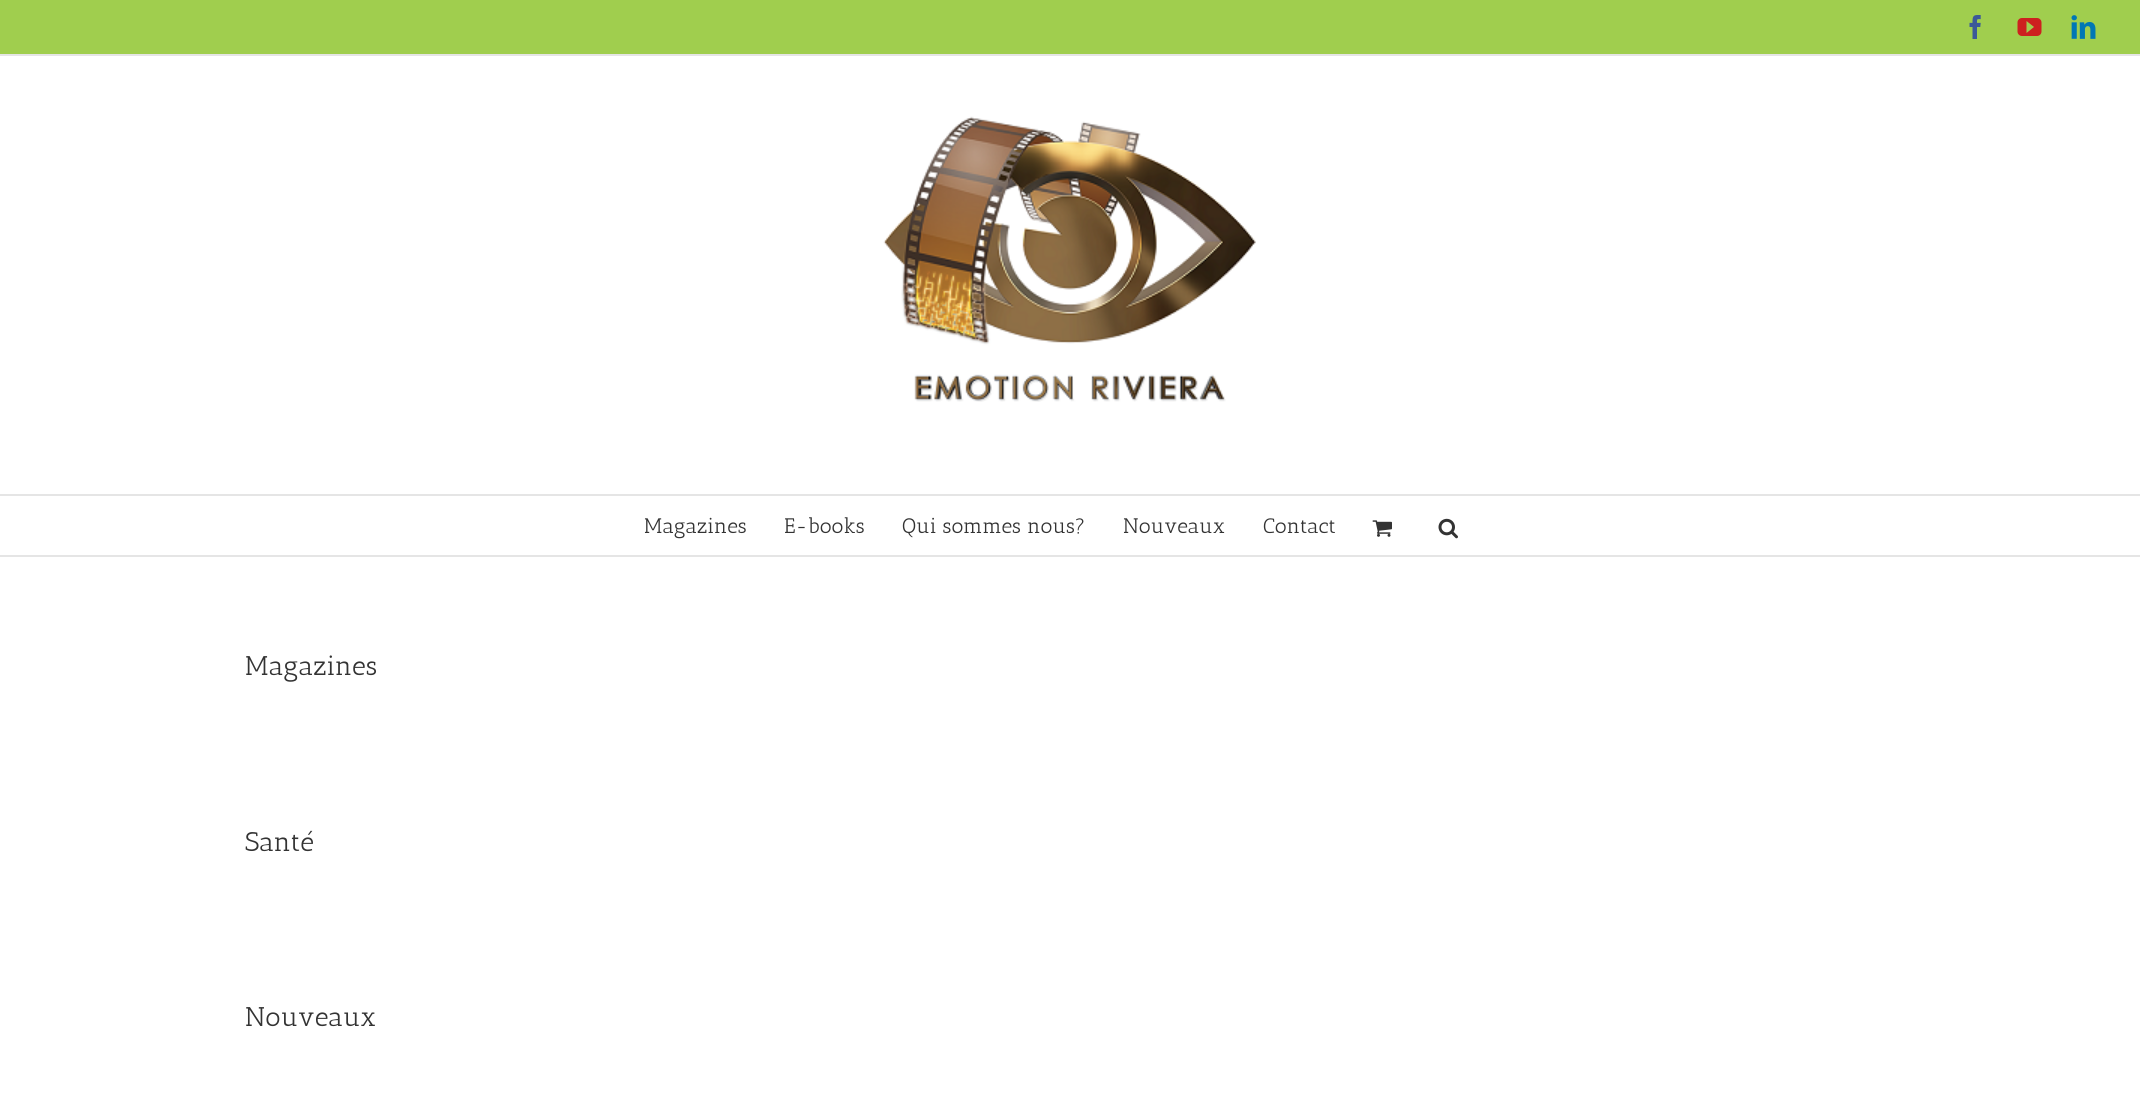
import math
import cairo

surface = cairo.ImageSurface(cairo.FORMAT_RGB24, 2140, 1104)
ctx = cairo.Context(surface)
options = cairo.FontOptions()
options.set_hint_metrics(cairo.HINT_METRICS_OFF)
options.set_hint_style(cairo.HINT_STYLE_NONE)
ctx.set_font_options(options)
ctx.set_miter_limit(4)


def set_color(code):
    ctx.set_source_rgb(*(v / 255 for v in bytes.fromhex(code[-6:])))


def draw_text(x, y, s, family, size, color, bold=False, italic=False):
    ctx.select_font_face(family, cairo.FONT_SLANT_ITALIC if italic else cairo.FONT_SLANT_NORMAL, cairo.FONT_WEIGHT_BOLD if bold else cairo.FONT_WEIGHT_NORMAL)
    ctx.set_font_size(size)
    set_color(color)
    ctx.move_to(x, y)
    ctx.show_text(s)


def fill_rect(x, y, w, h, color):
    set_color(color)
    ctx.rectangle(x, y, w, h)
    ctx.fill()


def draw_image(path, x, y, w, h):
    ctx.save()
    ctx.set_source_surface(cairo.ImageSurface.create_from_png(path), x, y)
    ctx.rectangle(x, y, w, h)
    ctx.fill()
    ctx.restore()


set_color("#ffffff")
ctx.paint()
fill_rect(0, 0, 2140, 54, "#a0ce4e")
fill_rect(0, 54, 2140, 2, "#e5e5e5")
draw_image("assets/img1.png", 1969, 15, 12, 24)
draw_image("assets/img2.png", 2017, 18, 25, 18)
draw_image("assets/img3.png", 2071, 15, 25, 24)
fill_rect(0, 494, 2140, 2, "#e5e5e5")
draw_image("assets/img4.png", 883, 116, 373, 286)
fill_rect(0, 555, 2140, 2, "#e5e5e5")
draw_text(644, 533, "Magazines", "Antic Slab", 21, "#333333")
draw_text(784, 533, "E-books", "Antic Slab", 21, "#333333")
draw_text(902, 533, "Qui sommes nous?", "Antic Slab", 21, "#333333")
draw_text(1123, 533, "Nouveaux", "Antic Slab", 21, "#333333")
draw_text(1263, 533, "Contact", "Antic Slab", 21, "#333333")
draw_image("assets/img5.png", 1372, 520, 20, 17)
draw_image("assets/img6.png", 1438, 518, 20, 21)
draw_text(245, 675, "Magazines", "Antic Slab", 27, "#333333")
draw_text(245, 851, "Santé", "Antic Slab", 27, "#333333")
draw_text(245, 1026, "Nouveaux", "Antic Slab", 27, "#333333")
surface.write_to_png("output.png")
